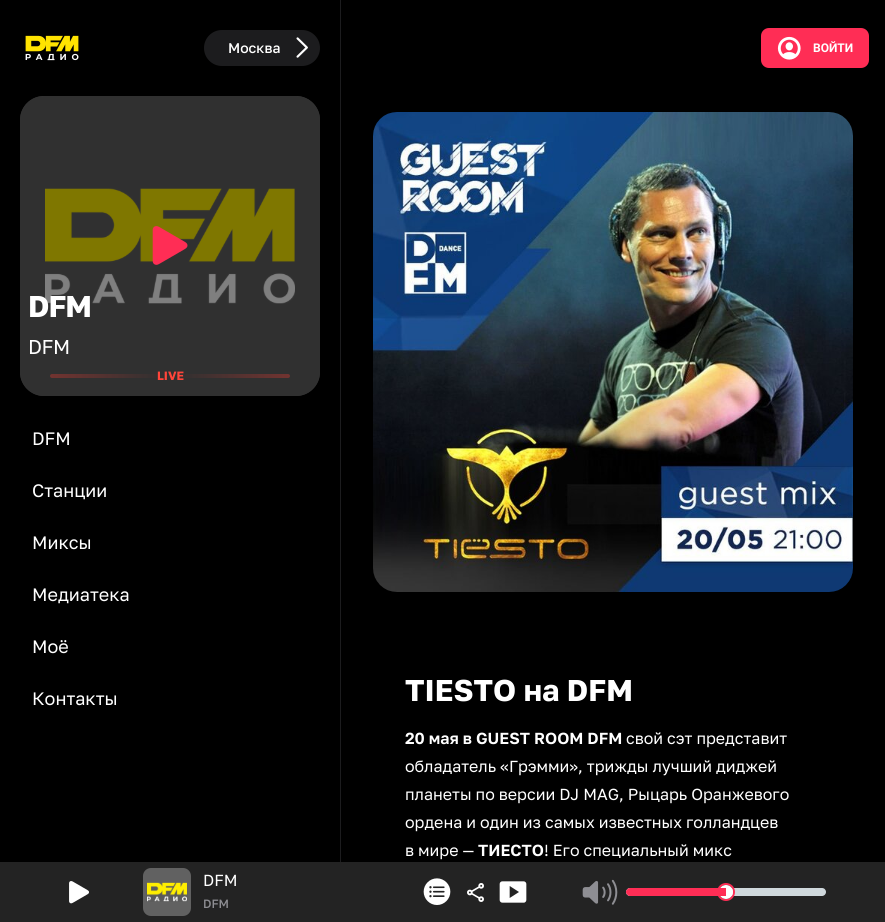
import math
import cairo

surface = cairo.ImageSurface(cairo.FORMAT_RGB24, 885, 922)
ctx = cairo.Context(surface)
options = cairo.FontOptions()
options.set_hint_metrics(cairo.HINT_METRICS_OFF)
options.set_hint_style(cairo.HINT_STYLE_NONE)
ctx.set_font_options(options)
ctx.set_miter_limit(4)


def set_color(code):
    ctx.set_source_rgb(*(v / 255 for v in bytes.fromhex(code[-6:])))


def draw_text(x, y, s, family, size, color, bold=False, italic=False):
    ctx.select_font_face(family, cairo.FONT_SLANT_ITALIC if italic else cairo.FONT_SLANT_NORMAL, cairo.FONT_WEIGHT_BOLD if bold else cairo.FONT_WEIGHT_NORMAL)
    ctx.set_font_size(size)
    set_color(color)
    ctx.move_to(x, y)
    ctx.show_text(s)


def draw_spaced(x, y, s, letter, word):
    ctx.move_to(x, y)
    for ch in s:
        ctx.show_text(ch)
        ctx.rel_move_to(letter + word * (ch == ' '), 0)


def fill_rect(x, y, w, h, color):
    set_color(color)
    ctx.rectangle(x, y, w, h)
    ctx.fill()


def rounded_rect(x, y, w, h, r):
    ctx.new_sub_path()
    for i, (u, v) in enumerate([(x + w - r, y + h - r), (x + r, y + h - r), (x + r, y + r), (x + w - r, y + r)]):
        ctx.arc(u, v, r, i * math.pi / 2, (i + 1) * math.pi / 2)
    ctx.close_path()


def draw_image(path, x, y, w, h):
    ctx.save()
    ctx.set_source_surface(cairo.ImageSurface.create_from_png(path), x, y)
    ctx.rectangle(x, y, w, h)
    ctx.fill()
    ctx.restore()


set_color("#000000")
ctx.paint()
fill_rect(0, 862, 885, 60, "#232323")
fill_rect(340, 0, 1, 862, "#1c1c1e")
draw_image("assets/img1.png", 25, 35, 54, 26)
rounded_rect(204, 30, 116, 36, 18)
ctx.fill()
draw_text(228, 53, "Москва", "Golos Text Medium", 14, "#ffffff")
draw_image("assets/img2.png", 296, 37, 12, 21)
set_color("#616161")
rounded_rect(20, 96, 300, 300, 24)
ctx.fill()
draw_image("assets/img4.png", 45, 188, 250, 116)
ctx.set_source_rgba(0, 0, 0, 0.5)
rounded_rect(20, 96, 300, 300, 24)
ctx.fill()
draw_image("assets/img3.png", 152, 226, 36, 39)
ctx.select_font_face("Golos Text", cairo.FONT_SLANT_NORMAL, cairo.FONT_WEIGHT_BOLD)
ctx.set_font_size(30)
set_color("#ffffff")
draw_spaced(28, 317, "DFM", -1, 0)
ctx.select_font_face("Golos Text")
ctx.set_font_size(20)
draw_spaced(28, 354, "DFM", -0.5, 0)
draw_text(157, 380, "LIVE", "Golos Text", 12, "#ff453a", bold=True)
gradient = cairo.LinearGradient(50, 376, 290, 376)
gradient.add_color_stop_rgba(0, 1, 0.231, 0.188, 0.32)
gradient.add_color_stop_rgba(0.47, 1, 0.231, 0.188, 0)
gradient.add_color_stop_rgba(0.53, 1, 0.231, 0.188, 0)
gradient.add_color_stop_rgba(1, 1, 0.231, 0.188, 0.32)
ctx.set_source(gradient)
rounded_rect(50, 374, 240, 4, 2)
ctx.fill()
draw_text(32, 445, "DFM", "Golos Text", 18, "#ffffff")
draw_text(32, 497, "Станции", "Golos Text", 18, "#ffffff")
draw_text(32, 549, "Миксы", "Golos Text", 18, "#ffffff")
draw_text(32, 601, "Медиатека", "Golos Text", 18, "#ffffff")
draw_text(32, 653, "Моё", "Golos Text", 18, "#ffffff")
draw_text(32, 705, "Контакты", "Golos Text", 18, "#ffffff")
set_color("#ff2d55")
rounded_rect(761, 28, 108, 40, 8)
ctx.fill()
draw_image("assets/img5.png", 777, 36, 24, 24)
draw_text(813, 52, "ВОЙТИ", "Roboto", 12, "#ffffff", bold=True)
draw_image("assets/img6.png", 373, 112, 480, 480)
draw_text(405, 701, "TIESTO на DFM", "Golos Text", 30, "#ffffff", bold=True)
draw_text(405, 744, "20 мая в GUEST ROOM DFM", "Golos Text SemiBold", 16, "#ffffff")
draw_text(626, 744, "свой сэт представит", "Golos Text", 16, "#ffffff")
draw_text(405, 772, "обладатель «Грэмми», трижды лучший диджей", "Golos Text", 16, "#ffffff")
draw_text(405, 800, "планеты по версии DJ MAG, Рыцарь Оранжевого", "Golos Text", 16, "#ffffff")
draw_text(405, 828, "ордена и один из самых известных голландцев", "Golos Text", 16, "#ffffff")
draw_text(405, 856, "в мире —", "Golos Text", 16, "#ffffff")
draw_text(478, 856, "ТИЕСТО", "Golos Text SemiBold", 16, "#ffffff")
draw_text(544, 856, "! Его специальный микс", "Golos Text", 16, "#ffffff")
draw_image("assets/img7.png", 69, 881, 20, 23)
set_color("#616161")
rounded_rect(143, 868, 48, 48, 8)
ctx.fill()
draw_image("assets/img8.png", 146, 882, 42, 20)
draw_text(203, 886, "DFM", "Golos Text", 16, "#ffffff")
draw_text(203, 908, "DFM", "Golos Text Medium", 12, "#8e8e93")
draw_image("assets/img9.png", 423, 878, 28, 27)
draw_image("assets/img10.png", 467, 883, 17, 19)
draw_image("assets/img11.png", 499, 881, 28, 22)
draw_image("assets/img12.png", 582, 879, 36, 26)
set_color("#cfd8dc")
rounded_rect(626, 888, 200, 8, 4)
ctx.fill()
ctx.arc(726, 892, 8, 0, 2 * math.pi)
set_color("#ff2d55")
ctx.stroke()
set_color("#ffffff")
ctx.arc(726, 892, 7, 0, 2 * math.pi)
ctx.fill()
set_color("#ff2d55")
ctx.new_path()
ctx.move_to(630, 888)
ctx.line_to(726, 888)
ctx.line_to(726, 896)
ctx.line_to(630, 896)
ctx.curve_to(628, 896, 626, 894, 626, 892)
ctx.curve_to(626, 890, 628, 888, 630, 888)
ctx.close_path()
ctx.fill()
surface.write_to_png("output.png")
